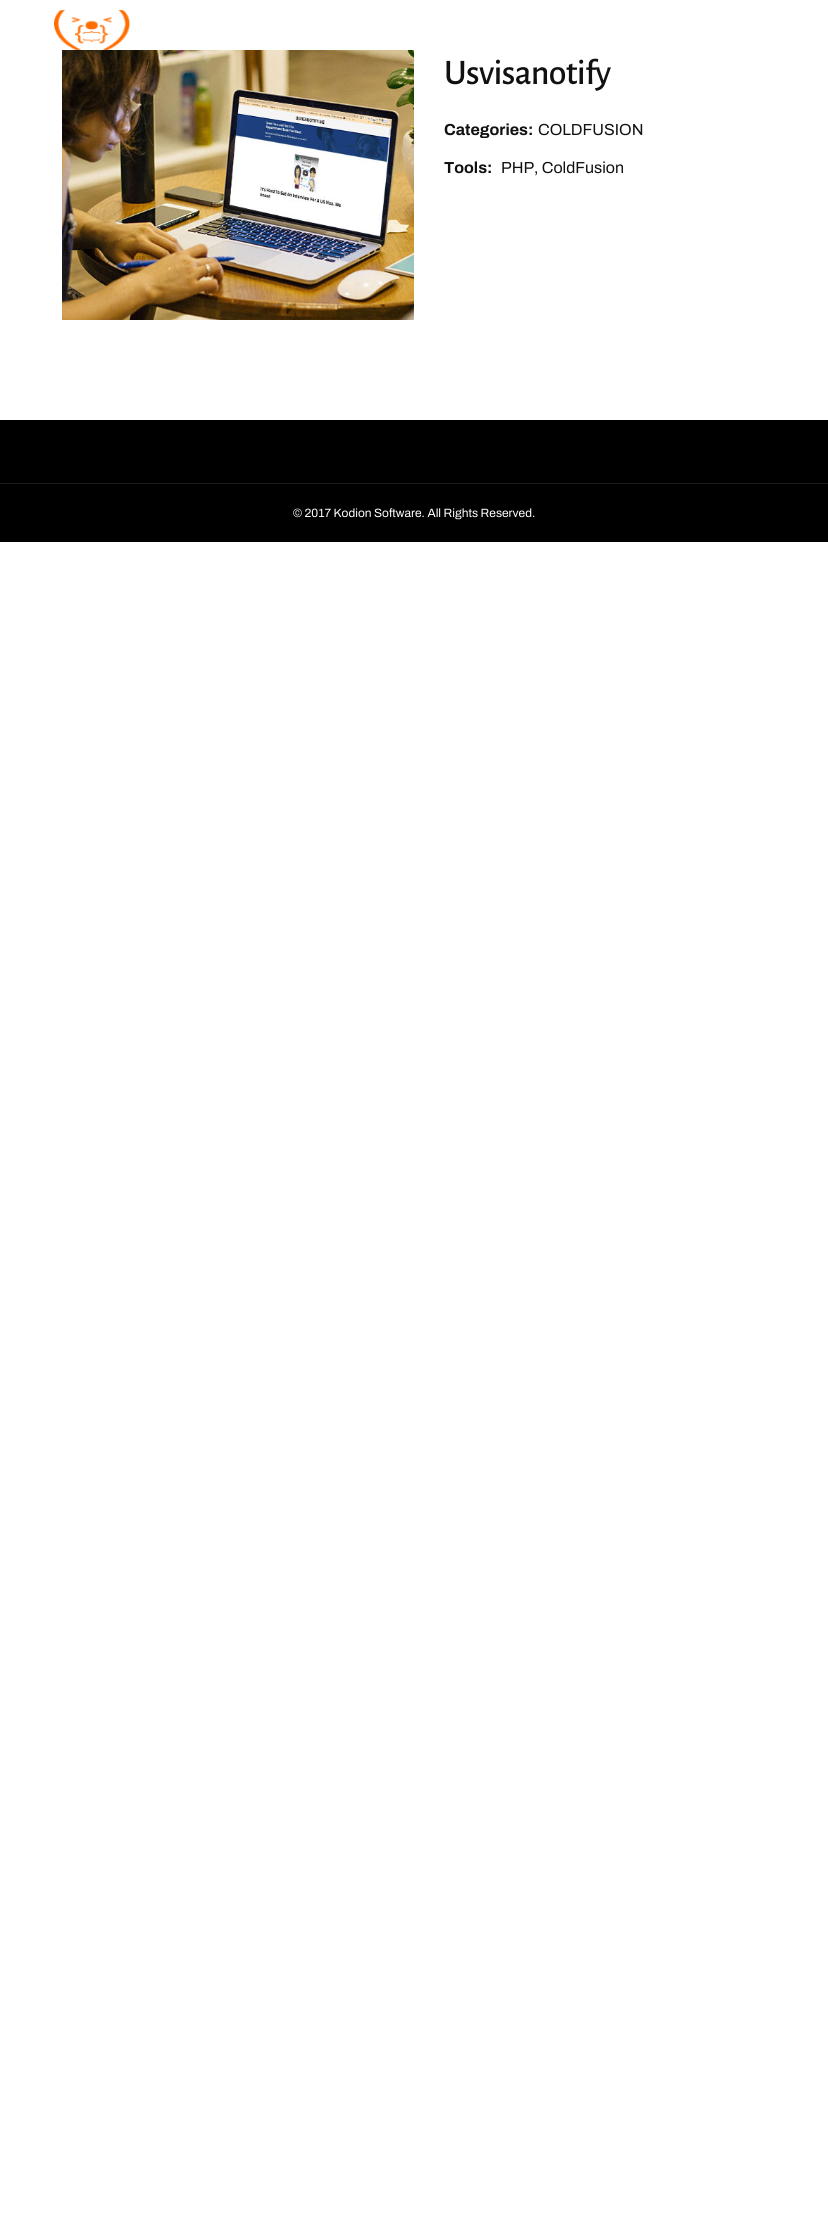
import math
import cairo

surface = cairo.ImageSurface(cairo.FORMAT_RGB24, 828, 2227)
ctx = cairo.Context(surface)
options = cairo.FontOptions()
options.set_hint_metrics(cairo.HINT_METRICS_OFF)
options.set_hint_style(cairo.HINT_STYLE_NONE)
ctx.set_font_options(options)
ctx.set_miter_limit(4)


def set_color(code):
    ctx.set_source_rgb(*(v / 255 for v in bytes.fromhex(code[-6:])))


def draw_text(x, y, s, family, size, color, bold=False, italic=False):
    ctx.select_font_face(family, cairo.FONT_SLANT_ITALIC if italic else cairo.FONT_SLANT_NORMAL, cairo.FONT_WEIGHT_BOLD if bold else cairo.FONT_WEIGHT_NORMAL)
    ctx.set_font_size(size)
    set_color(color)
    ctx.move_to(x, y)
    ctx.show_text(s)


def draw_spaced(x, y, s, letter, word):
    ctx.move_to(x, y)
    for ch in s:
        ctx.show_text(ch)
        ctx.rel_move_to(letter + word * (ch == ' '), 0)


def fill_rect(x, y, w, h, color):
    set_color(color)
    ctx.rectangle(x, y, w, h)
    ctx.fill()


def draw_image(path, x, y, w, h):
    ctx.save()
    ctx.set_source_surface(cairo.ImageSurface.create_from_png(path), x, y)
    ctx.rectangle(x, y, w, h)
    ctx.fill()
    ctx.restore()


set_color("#ffffff")
ctx.paint()
draw_image("assets/img1.png", 54, 10, 76, 40)
draw_image("assets/img2.png", 62, 50, 352, 270)
ctx.select_font_face("Alegreya Sans Medium")
ctx.set_font_size(36)
set_color("#111111")
draw_spaced(444, 84, "Usvisanotify", -0.75, 0)
draw_text(444, 135, "Categories:", "Archivo", 16, "#111111", bold=True)
draw_text(538, 135, "COLDFUSION", "Archivo", 16, "#111111")
draw_text(444, 173, "Tools:", "Archivo", 16, "#111111", bold=True)
draw_text(501, 173, "PHP, ColdFusion", "Archivo", 16, "#111111")
fill_rect(0, 420, 828, 63, "#000000")
fill_rect(0, 484, 828, 58, "#000000")
fill_rect(0, 483, 828, 1, "#1a1a1a")
draw_text(293, 517, "© 2017 Kodion Software. All Rights Reserved.", "Archivo", 12, "#ffffff")
surface.write_to_png("output.png")
